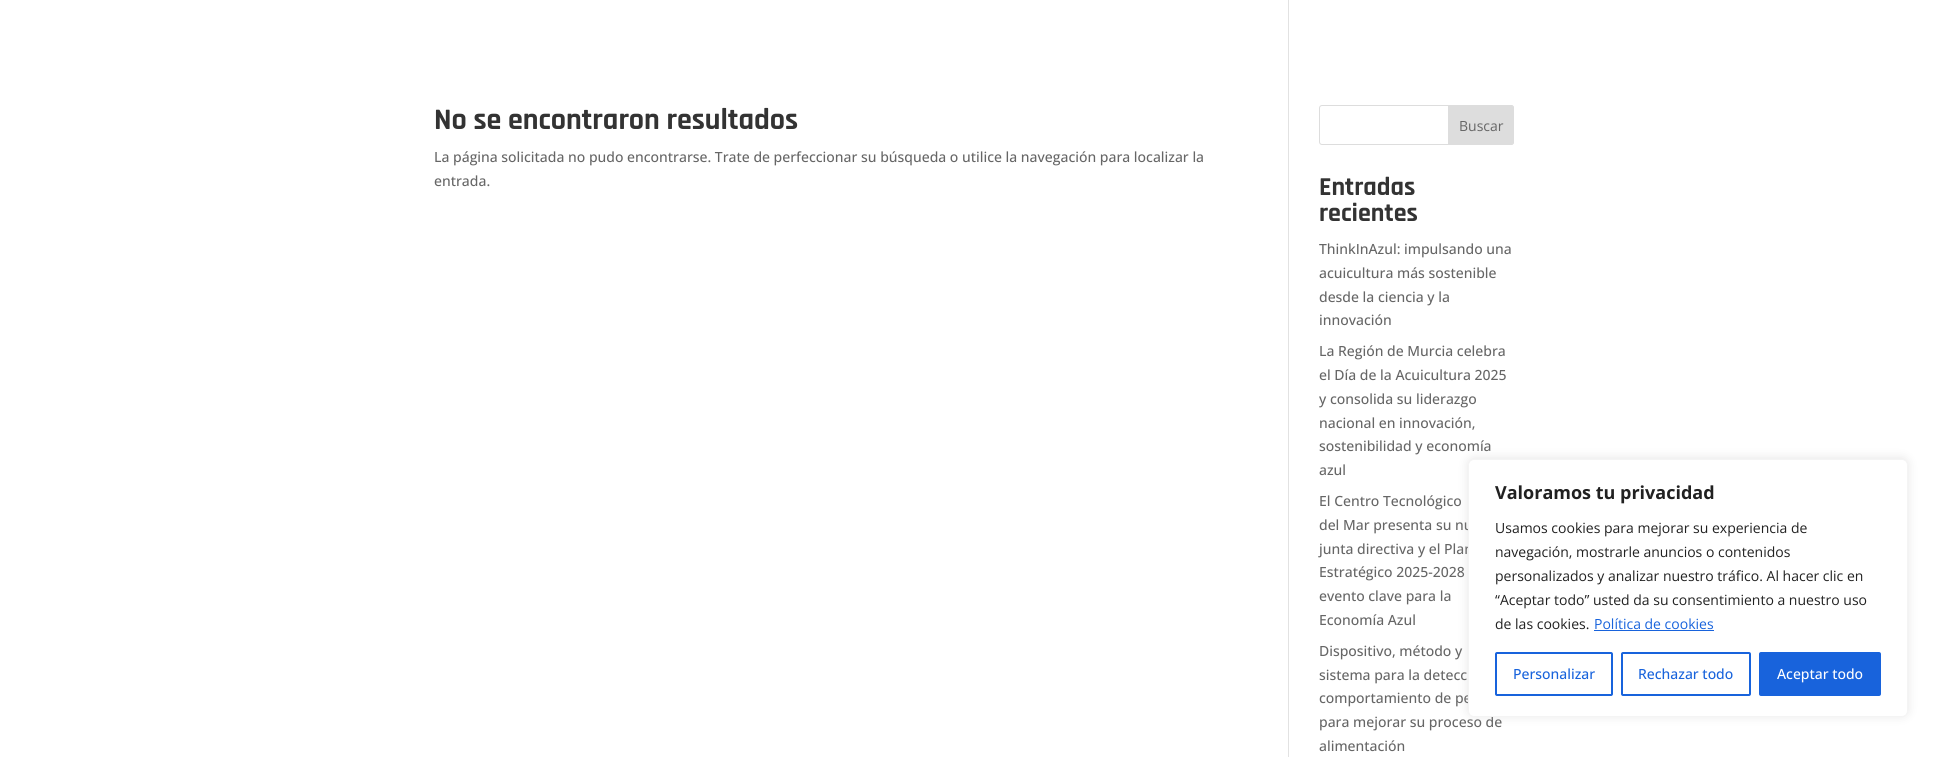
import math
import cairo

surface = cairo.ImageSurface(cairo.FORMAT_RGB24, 1948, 757)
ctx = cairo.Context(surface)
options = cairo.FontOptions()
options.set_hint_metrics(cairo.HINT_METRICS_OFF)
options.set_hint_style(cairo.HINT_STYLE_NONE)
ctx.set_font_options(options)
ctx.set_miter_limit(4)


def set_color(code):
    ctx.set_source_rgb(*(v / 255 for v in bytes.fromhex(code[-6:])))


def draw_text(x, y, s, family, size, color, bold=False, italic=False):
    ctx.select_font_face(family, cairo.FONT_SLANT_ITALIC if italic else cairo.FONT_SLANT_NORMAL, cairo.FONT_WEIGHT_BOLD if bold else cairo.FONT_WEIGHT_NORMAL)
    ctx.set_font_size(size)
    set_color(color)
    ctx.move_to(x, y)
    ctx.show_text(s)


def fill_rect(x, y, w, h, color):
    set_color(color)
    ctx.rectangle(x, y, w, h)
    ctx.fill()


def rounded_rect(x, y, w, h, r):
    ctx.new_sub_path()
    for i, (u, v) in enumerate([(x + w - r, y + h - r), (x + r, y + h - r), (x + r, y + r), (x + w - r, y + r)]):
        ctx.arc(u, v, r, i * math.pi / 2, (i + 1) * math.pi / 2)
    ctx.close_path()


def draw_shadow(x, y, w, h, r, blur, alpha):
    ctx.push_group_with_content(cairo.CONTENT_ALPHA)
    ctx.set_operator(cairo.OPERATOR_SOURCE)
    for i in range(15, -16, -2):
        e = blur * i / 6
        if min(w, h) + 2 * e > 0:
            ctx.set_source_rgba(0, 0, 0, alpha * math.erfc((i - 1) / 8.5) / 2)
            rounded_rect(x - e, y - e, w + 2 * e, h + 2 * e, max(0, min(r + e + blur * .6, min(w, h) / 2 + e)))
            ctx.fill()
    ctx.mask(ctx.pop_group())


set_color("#ffffff")
ctx.paint()
fill_rect(1288, 0, 1, 757, "#e2e2e2")
draw_text(434, 129, "No se encontraron resultados", "Rajdhani", 30, "#333333", bold=True)
draw_text(434, 162, "La página solicitada no pudo encontrarse. Trate de perfeccionar su búsqueda o utilice la navegación para localizar la", "Open Sans Medium", 14, "#666666")
draw_text(434, 186, "entrada.", "Open Sans Medium", 14, "#666666")
rounded_rect(1319.5, 105.5, 194, 39, 2.5)
set_color("#dddddd")
ctx.set_line_width(1)
ctx.stroke()
ctx.new_path()
ctx.move_to(1448.5, 105.5)
ctx.line_to(1511, 105.5)
ctx.curve_to(1512.5, 105.5, 1513.5, 106.5, 1513.5, 108)
ctx.line_to(1513.5, 142)
ctx.curve_to(1513.5, 143.5, 1512.5, 144.5, 1511, 144.5)
ctx.line_to(1448.5, 144.5)
ctx.close_path()
ctx.fill_preserve()
ctx.stroke()
draw_text(1459, 131, "Buscar", "Open Sans", 14, "#666666")
draw_text(1319, 195, "Entradas", "Rajdhani", 26, "#333333", bold=True)
draw_text(1319, 221, "recientes", "Rajdhani", 26, "#333333", bold=True)
draw_text(1319, 254, "ThinkInAzul: impulsando una", "Open Sans Medium", 14, "#666666")
draw_text(1319, 278, "acuicultura más sostenible", "Open Sans Medium", 14, "#666666")
draw_text(1319, 302, "desde la ciencia y la", "Open Sans Medium", 14, "#666666")
draw_text(1319, 325, "innovación", "Open Sans Medium", 14, "#666666")
draw_text(1319, 356, "La Región de Murcia celebra", "Open Sans Medium", 14, "#666666")
draw_text(1319, 380, "el Día de la Acuicultura 2025", "Open Sans Medium", 14, "#666666")
draw_text(1319, 404, "y consolida su liderazgo", "Open Sans Medium", 14, "#666666")
draw_text(1319, 428, "nacional en innovación,", "Open Sans Medium", 14, "#666666")
draw_text(1319, 451, "sostenibilidad y economía", "Open Sans Medium", 14, "#666666")
draw_text(1319, 475, "azul", "Open Sans Medium", 14, "#666666")
draw_text(1319, 506, "El Centro Tecnológico", "Open Sans Medium", 14, "#666666")
draw_text(1319, 530, "del Mar presenta su nu", "Open Sans Medium", 14, "#666666")
draw_text(1319, 554, "junta directiva y el Plan", "Open Sans Medium", 14, "#666666")
draw_text(1319, 577, "Estratégico 2025-2028", "Open Sans Medium", 14, "#666666")
draw_text(1319, 601, "evento clave para la", "Open Sans Medium", 14, "#666666")
draw_text(1319, 625, "Economía Azul", "Open Sans Medium", 14, "#666666")
draw_text(1319, 656, "Dispositivo, método y", "Open Sans Medium", 14, "#666666")
draw_text(1319, 680, "sistema para la detecc", "Open Sans Medium", 14, "#666666")
draw_text(1319, 703, "comportamiento de pe", "Open Sans Medium", 14, "#666666")
draw_text(1319, 727, "para mejorar su proceso de", "Open Sans Medium", 14, "#666666")
draw_text(1319, 751, "alimentación", "Open Sans Medium", 14, "#666666")
set_color("#acabab")
draw_shadow(1468, 458, 440, 258, 6, 5, 0.3)
set_color("#ffffff")
rounded_rect(1468.5, 459.5, 439, 257, 5.5)
ctx.fill_preserve()
set_color("#f4f4f4")
ctx.stroke()
draw_text(1495, 499, "Valoramos tu privacidad", "Open Sans", 18, "#212121", bold=True)
draw_text(1495, 533, "Usamos cookies para mejorar su experiencia de", "Open Sans", 14, "#212121")
draw_text(1495, 557, "navegación, mostrarle anuncios o contenidos", "Open Sans", 14, "#212121")
draw_text(1495, 581, "personalizados y analizar nuestro tráfico. Al hacer clic en", "Open Sans", 14, "#212121")
draw_text(1495, 605, "“Aceptar todo” usted da su consentimiento a nuestro uso", "Open Sans", 14, "#212121")
draw_text(1495, 629, "de las cookies.", "Open Sans", 14, "#212121")
draw_text(1594, 629, "Política de cookies", "Open Sans", 14, "#1863dc")
fill_rect(1594, 630, 120, 1, "#1863dc")
rounded_rect(1496, 653, 116, 42, 1)
ctx.set_line_width(2)
ctx.stroke()
draw_text(1513, 679, "Personalizar", "Open Sans Medium", 14, "#1863dc")
rounded_rect(1622, 653, 128, 42, 1)
ctx.stroke()
draw_text(1638, 679, "Rechazar todo", "Open Sans Medium", 14, "#1863dc")
rounded_rect(1760, 653, 120, 42, 1)
ctx.fill_preserve()
ctx.stroke()
draw_text(1777, 679, "Aceptar todo", "Open Sans Medium", 14, "#ffffff")
surface.write_to_png("output.png")
